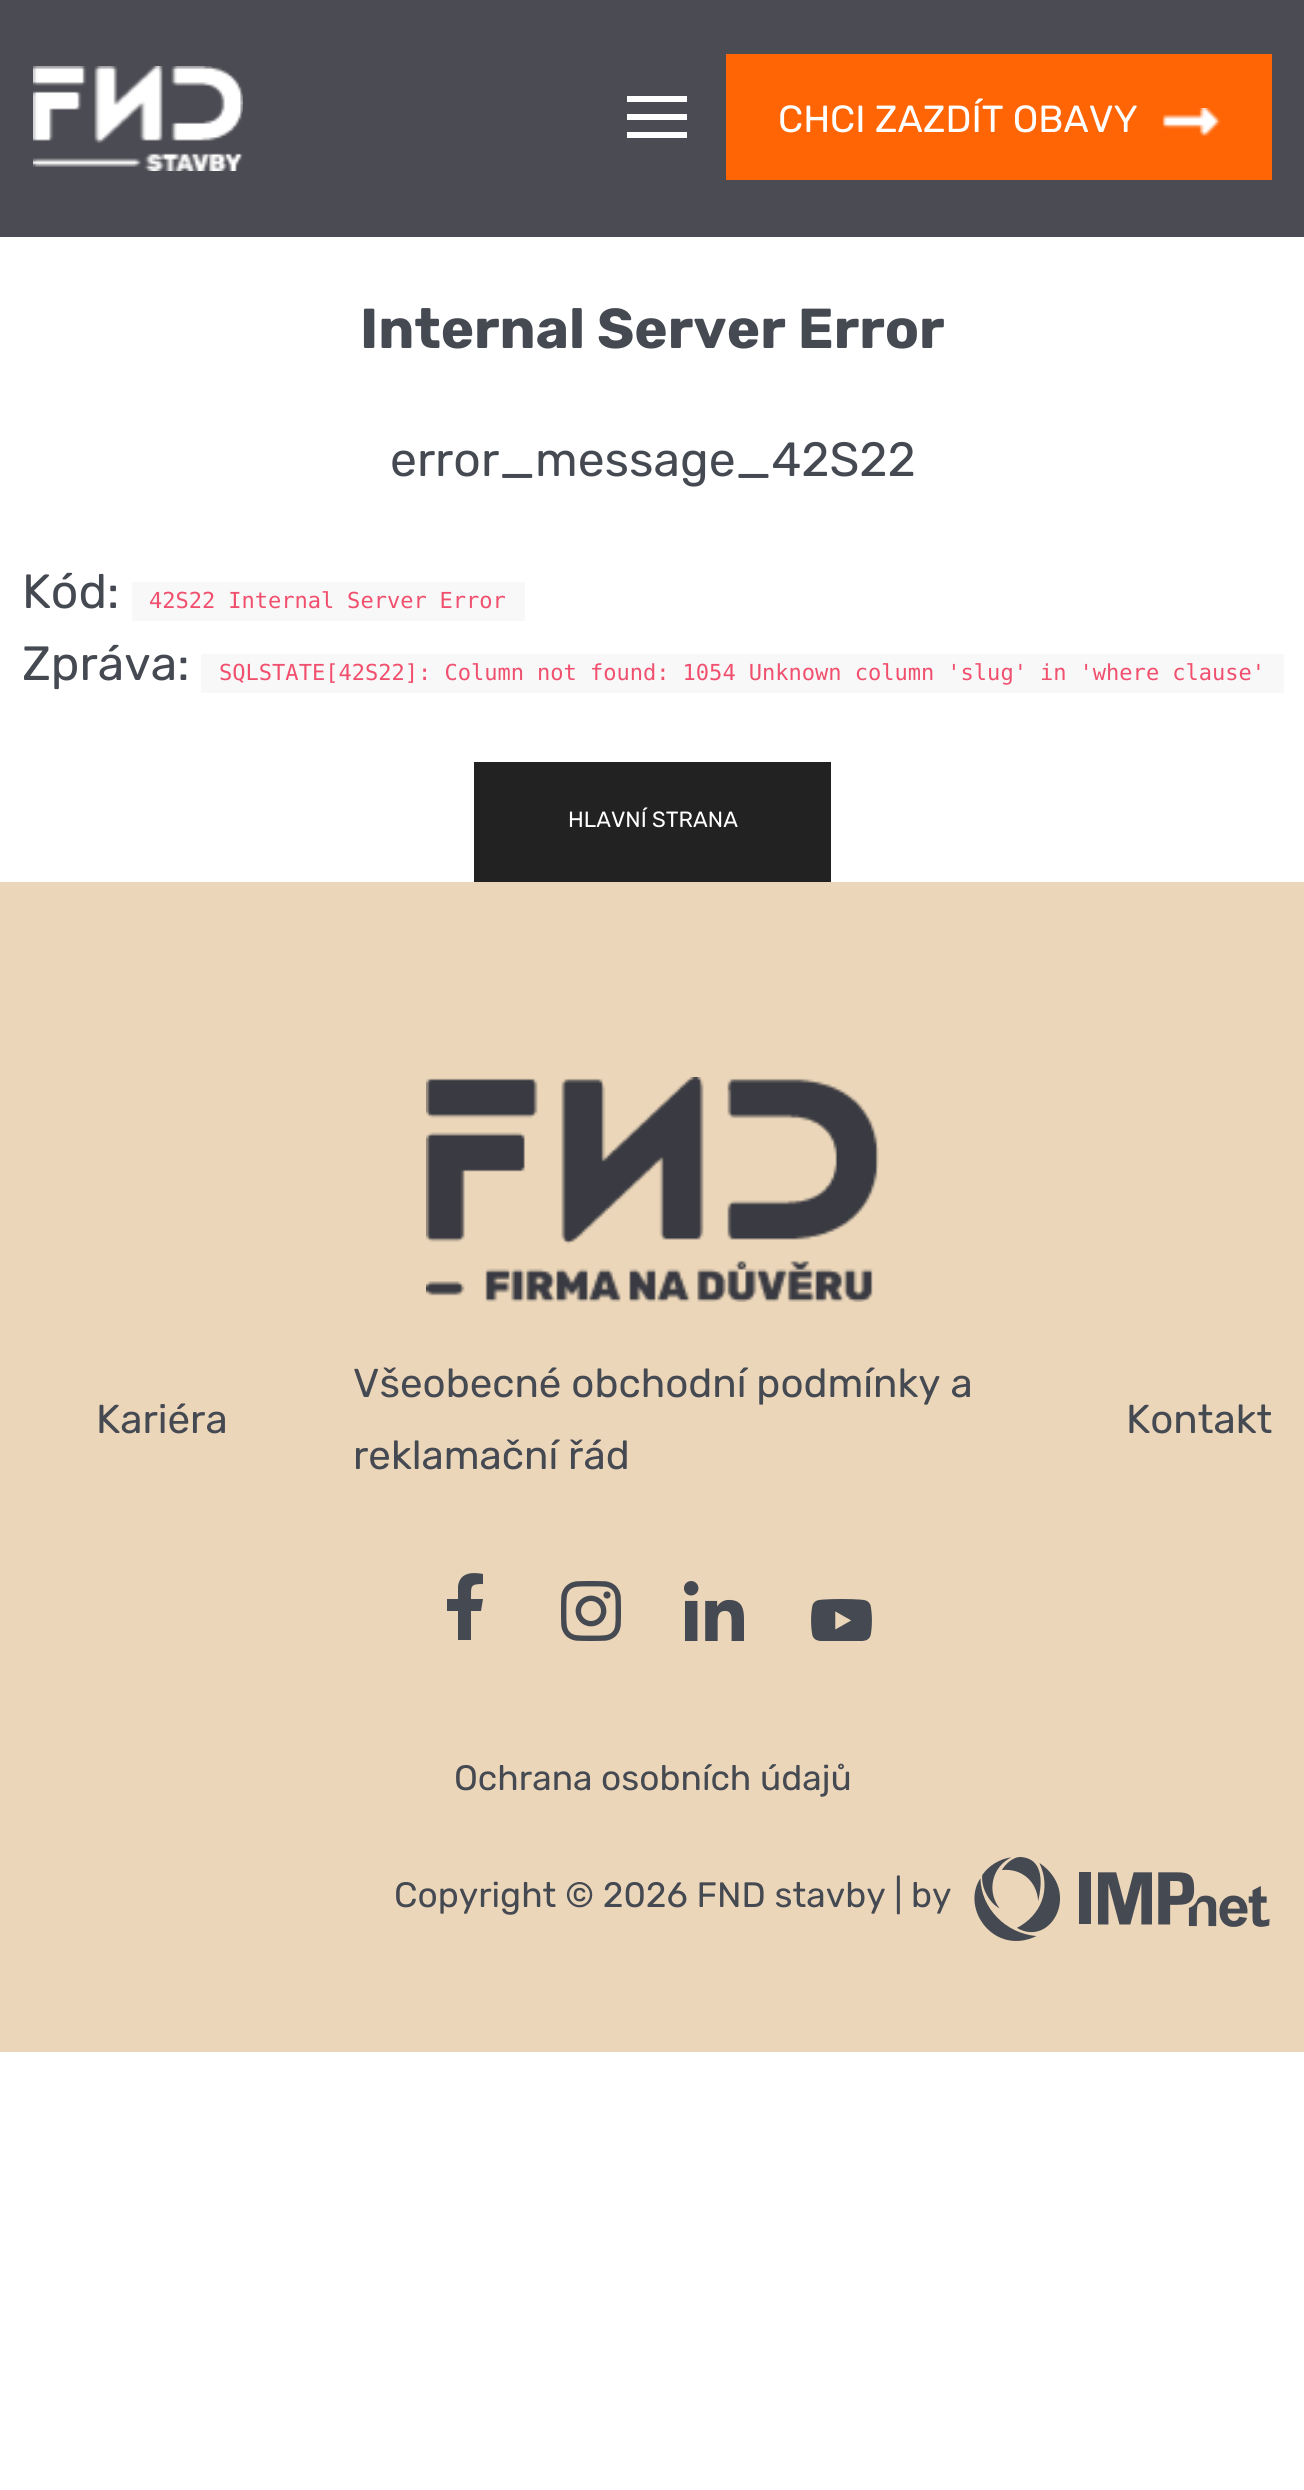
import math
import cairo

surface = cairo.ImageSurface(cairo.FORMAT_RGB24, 1304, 2490)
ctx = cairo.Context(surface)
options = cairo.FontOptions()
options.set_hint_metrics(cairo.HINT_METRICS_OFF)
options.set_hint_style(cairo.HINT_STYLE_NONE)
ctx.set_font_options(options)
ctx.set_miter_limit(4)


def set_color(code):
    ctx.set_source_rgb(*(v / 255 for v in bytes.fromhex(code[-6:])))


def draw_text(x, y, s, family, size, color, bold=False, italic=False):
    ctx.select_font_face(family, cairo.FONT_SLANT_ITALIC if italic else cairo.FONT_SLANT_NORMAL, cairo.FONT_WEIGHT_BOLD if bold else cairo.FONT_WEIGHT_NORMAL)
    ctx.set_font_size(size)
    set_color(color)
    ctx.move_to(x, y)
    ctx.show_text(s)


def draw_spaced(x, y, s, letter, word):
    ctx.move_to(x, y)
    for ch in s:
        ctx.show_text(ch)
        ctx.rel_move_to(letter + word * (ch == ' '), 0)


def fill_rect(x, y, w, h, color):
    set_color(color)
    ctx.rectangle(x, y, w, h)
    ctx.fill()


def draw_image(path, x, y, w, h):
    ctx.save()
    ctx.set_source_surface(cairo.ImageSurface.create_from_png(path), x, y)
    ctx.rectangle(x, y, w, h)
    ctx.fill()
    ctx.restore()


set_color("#ffffff")
ctx.paint()
fill_rect(0, 0, 1304, 237, "#4b4b53")
draw_image("assets/img1.png", 33, 66, 210, 105)
fill_rect(627, 114, 60, 6, "#ffffff")
fill_rect(627, 96, 60, 6, "#ffffff")
fill_rect(627, 132, 60, 6, "#ffffff")
fill_rect(726, 54, 546, 126, "#ff6405")
draw_text(778, 132, "CHCI ZAZDÍT OBAVY", "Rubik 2 Light", 37.75, "#ffffff")
draw_image("assets/img2.png", 1162, 108, 59, 28)
draw_text(360, 348, "Internal Server Error", "Rubik Light", 56.25, "#454951")
draw_text(390, 476, "error_message_42S22", "Rubik 2 Light", 48, "#454951")
draw_text(22, 608, "Kód:", "Rubik 2 Light", 48, "#454951")
fill_rect(132, 582, 393, 39, "#f8f8f8")
ctx.select_font_face("DejaVu Sans Mono")
ctx.set_font_size(22.05)
set_color("#f0506e")
draw_spaced(149, 608, "42S22 Internal Server Error", 0, -0.5)
draw_text(22, 680, "Zpráva:", "Rubik 2 Light", 48, "#454951")
fill_rect(201, 654, 1083, 39, "#f8f8f8")
ctx.select_font_face("DejaVu Sans Mono")
ctx.set_font_size(22.05)
set_color("#f0506e")
draw_spaced(219, 680, "SQLSTATE[42S22]: Column not found: 1054 Unknown column 'slug' in 'where clause'", 0, -0.25)
fill_rect(474, 762, 357, 120, "#222222")
draw_text(568, 827, "HLAVNÍ STRANA", "Rubik 2 Light", 22.05, "#ffffff")
fill_rect(0, 882, 1304, 1170, "#ebd6b9")
draw_image("assets/img3.png", 426, 1077, 453, 225)
draw_text(96, 1433, "Kariéra", "Rubik 2 Light", 40.3, "#454951")
draw_text(353, 1397, "Všeobecné obchodní podmínky a", "Rubik 2 Light", 40.3, "#454951")
draw_text(353, 1469, "reklamační řád", "Rubik 2 Light", 40.3, "#454951")
draw_text(1126, 1433, "Kontakt", "Rubik 2 Light", 40.3, "#454951")
ctx.new_path()
ctx.move_to(481, 1611)
ctx.line_to(483, 1599)
ctx.line_to(471, 1599)
ctx.curve_to(471, 1586, 470, 1584, 483, 1584)
ctx.line_to(483, 1574)
ctx.curve_to(473, 1572, 460, 1572, 458, 1586)
ctx.line_to(458, 1599)
ctx.line_to(447, 1599)
ctx.line_to(447, 1611)
ctx.line_to(458, 1611)
ctx.line_to(458, 1640)
ctx.line_to(471, 1640)
ctx.line_to(471, 1611)
ctx.close_path()
ctx.fill()
draw_image("assets/img4.png", 561, 1581, 60, 60)
draw_image("assets/img5.png", 684, 1581, 60, 60)
draw_image("assets/img6.png", 811, 1599, 61, 42)
draw_text(454, 1790, "Ochrana osobních údajů", "Rubik 2 Light", 35.25, "#454951")
draw_text(394, 1907, "Copyright © 2026 FND stavby | by", "Rubik 2 Light", 35.25, "#454951")
draw_image("assets/img7.png", 974, 1857, 296, 84)
surface.write_to_png("output.png")
